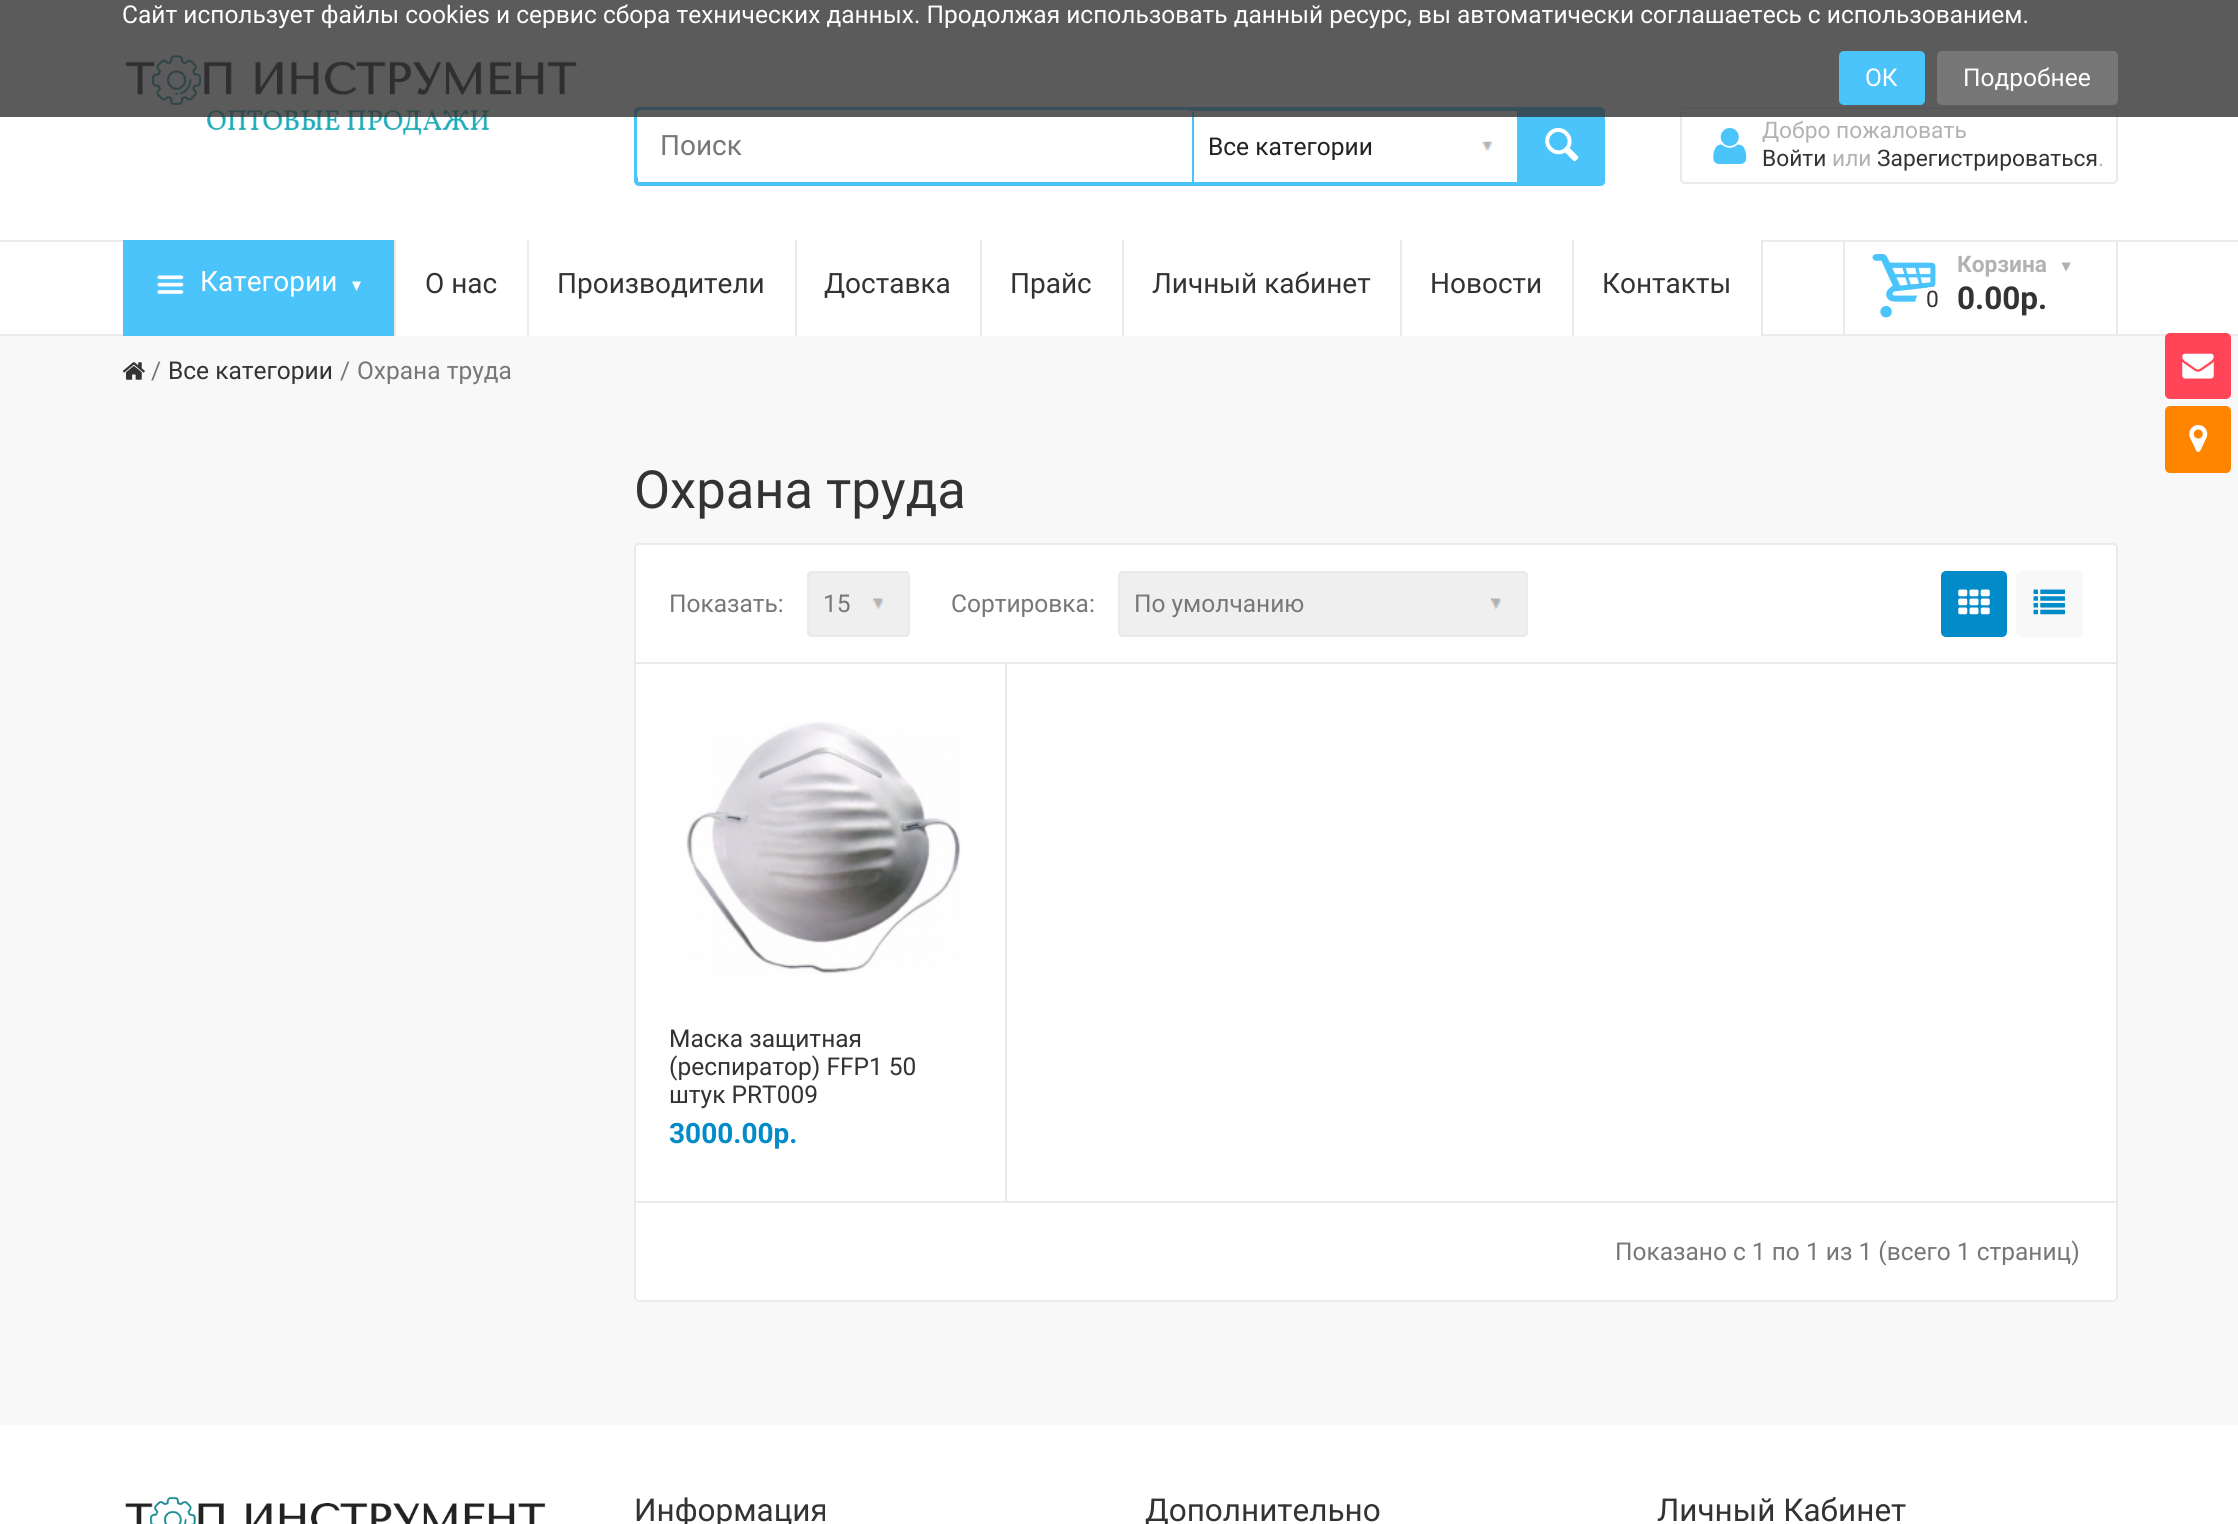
import math
import cairo

surface = cairo.ImageSurface(cairo.FORMAT_RGB24, 2238, 1524)
ctx = cairo.Context(surface)
options = cairo.FontOptions()
options.set_hint_metrics(cairo.HINT_METRICS_OFF)
options.set_hint_style(cairo.HINT_STYLE_NONE)
ctx.set_font_options(options)
ctx.set_miter_limit(4)


def set_color(code):
    ctx.set_source_rgb(*(v / 255 for v in bytes.fromhex(code[-6:])))


def draw_text(x, y, s, family, size, color, bold=False, italic=False):
    ctx.select_font_face(family, cairo.FONT_SLANT_ITALIC if italic else cairo.FONT_SLANT_NORMAL, cairo.FONT_WEIGHT_BOLD if bold else cairo.FONT_WEIGHT_NORMAL)
    ctx.set_font_size(size)
    set_color(color)
    ctx.move_to(x, y)
    ctx.show_text(s)


def fill_rect(x, y, w, h, color):
    set_color(color)
    ctx.rectangle(x, y, w, h)
    ctx.fill()


def rounded_rect(x, y, w, h, r):
    ctx.new_sub_path()
    for i, (u, v) in enumerate([(x + w - r, y + h - r), (x + r, y + h - r), (x + r, y + r), (x + w - r, y + r)]):
        ctx.arc(u, v, r, i * math.pi / 2, (i + 1) * math.pi / 2)
    ctx.close_path()


def draw_image(path, x, y, w, h):
    ctx.save()
    ctx.set_source_surface(cairo.ImageSurface.create_from_png(path), x, y)
    ctx.rectangle(x, y, w, h)
    ctx.fill()
    ctx.restore()


set_color("#f8f8f8")
ctx.paint()
fill_rect(0, 0, 2238, 334, "#ffffff")
draw_image("assets/img1.png", 125, 55, 452, 81)
rounded_rect(636, 109, 967, 75, 3)
set_color("#4ac4fa")
ctx.set_line_width(4)
ctx.stroke()
set_color("#ffffff")
rounded_rect(637, 110, 555, 70, 5)
ctx.fill()
fill_rect(1192, 112, 2, 70, "#4ac4fa")
ctx.new_path()
ctx.move_to(1517, 107)
ctx.line_to(1600, 107)
ctx.curve_to(1603, 107, 1605, 109, 1605, 112)
ctx.line_to(1605, 181)
ctx.curve_to(1605, 184, 1603, 186, 1600, 186)
ctx.line_to(1517, 186)
ctx.close_path()
ctx.fill()
rounded_rect(1681, 108, 436, 75, 4)
set_color("#eaeaea")
ctx.set_line_width(2)
ctx.stroke()
ctx.set_source_rgba(0.2, 0.2, 0.2, 0.8)
ctx.rectangle(0, 0, 2238, 117)
ctx.fill()
draw_text(122, 23, "Сайт использует файлы cookies и сервис сбора технических данных. Продолжая использовать данный ресурс, вы автоматически соглашаетесь с использованием.", "Roboto", 24.5, "#ffffff")
set_color("#4ac4fa")
rounded_rect(1839, 51, 86, 54, 5)
ctx.fill()
draw_text(1865, 86, "ОК", "Roboto", 24.5, "#ffffff")
set_color("#777777")
rounded_rect(1937, 51, 181, 54, 5)
ctx.fill()
draw_text(1963, 86, "Подробнее", "Roboto", 24.5, "#ffffff")
draw_text(660, 155, "Поиск", "Roboto", 28, "#777777")
draw_image("assets/img2.png", 1482, 141, 12, 10)
draw_text(1208, 155, "Все категории", "Roboto", 24.5, "#222222")
draw_image("assets/img3.png", 1545, 127, 34, 35)
draw_image("assets/img4.png", 1713, 128, 34, 36)
draw_text(1762, 138, "Добро пожаловать", "Roboto", 22.75, "#b2b2b2")
draw_text(1762, 166, "Войти", "Roboto", 22.75, "#333333")
draw_text(1832, 166, "или", "Roboto", 22.75, "#b2b2b2")
draw_text(1877, 166, "Зарегистрироваться", "Roboto", 22.75, "#333333")
draw_text(2098, 166, ".", "Roboto", 22.75, "#b2b2b2")
fill_rect(0, 240, 2238, 2, "#ebebeb")
fill_rect(0, 334, 2238, 2, "#ebebeb")
fill_rect(123, 240, 271, 96, "#4ac4fa")
draw_image("assets/img5.png", 157, 275, 27, 19)
draw_text(200, 291, "Категории", "Roboto", 28, "#ffffff")
ctx.new_path()
ctx.move_to(356.5, 291)
ctx.line_to(352, 281.5)
ctx.line_to(361, 281.5)
ctx.close_path()
ctx.fill()
fill_rect(396, 240, 131, 96, "#ffffff")
fill_rect(529, 240, 266, 96, "#ffffff")
fill_rect(797, 240, 183, 96, "#ffffff")
fill_rect(982, 240, 140, 96, "#ffffff")
fill_rect(1124, 240, 276, 96, "#ffffff")
fill_rect(1402, 240, 170, 96, "#ffffff")
fill_rect(1574, 240, 187, 96, "#ffffff")
fill_rect(527, 240, 2, 96, "#eaeaea")
fill_rect(394, 240, 2, 96, "#eaeaea")
draw_text(425, 293, "О нас", "Roboto", 28, "#333333")
fill_rect(795, 240, 2, 96, "#eaeaea")
draw_text(557, 293, "Производители", "Roboto", 28, "#333333")
fill_rect(980, 240, 2, 96, "#eaeaea")
draw_text(824, 293, "Доставка", "Roboto", 28, "#333333")
fill_rect(1122, 240, 2, 96, "#eaeaea")
draw_text(1010, 293, "Прайс", "Roboto", 28, "#333333")
fill_rect(1400, 240, 2, 96, "#eaeaea")
draw_text(1152, 293, "Личный кабинет", "Roboto", 28, "#333333")
fill_rect(1572, 240, 2, 96, "#eaeaea")
draw_text(1430, 293, "Новости", "Roboto", 28, "#333333")
fill_rect(1761, 240, 2, 96, "#eaeaea")
draw_text(1602, 293, "Контакты", "Roboto", 28, "#333333")
fill_rect(2116, 240, 2, 96, "#eaeaea")
fill_rect(1843, 240, 2, 96, "#eaeaea")
draw_image("assets/img6.png", 1872, 254, 64, 64)
draw_text(1957, 272, "Корзина", "Roboto", 22.75, "#b2b2b2", bold=True)
ctx.new_path()
ctx.move_to(2066, 271.5)
ctx.line_to(2061.5, 262.5)
ctx.line_to(2071, 262.5)
ctx.close_path()
ctx.fill()
set_color("#ffffff")
ctx.arc(1932.5, 304.5, 17.5, 0, 2 * math.pi)
ctx.fill()
draw_text(1926, 307, "0", "Roboto", 22.75, "#333333")
draw_text(1957, 309, "0.00р.", "Roboto", 31.5, "#333333", bold=True)
draw_image("assets/img7.png", 122, 362, 23, 18)
draw_text(151, 379, "/", "Roboto", 24.5, "#777777")
draw_text(168, 379, "Все категории", "Roboto", 24.5, "#333333")
draw_text(340, 379, "/", "Roboto", 24.5, "#777777")
draw_text(357, 379, "Охрана труда", "Roboto", 24.5, "#777777")
draw_text(634, 508, "Охрана труда", "Roboto", 52.5, "#333333")
set_color("#ffffff")
rounded_rect(635, 544, 1482, 757, 4)
ctx.fill_preserve()
set_color("#eaeaea")
ctx.stroke()
fill_rect(635, 662, 1481, 2, "#eaeaea")
draw_text(669, 612, "Показать:", "Roboto", 24.5, "#777777")
set_color("#efefef")
rounded_rect(807, 571, 103, 66, 5)
ctx.fill()
draw_image("assets/img8.png", 873, 598, 11, 11)
rounded_rect(808, 572, 101, 64, 4)
set_color("#eaeaea")
ctx.stroke()
draw_text(823, 612, "15", "Roboto", 24.5, "#777777")
draw_text(951, 612, "Сортировка:", "Roboto", 24.5, "#777777")
set_color("#efefef")
rounded_rect(1118, 571, 410, 66, 5)
ctx.fill()
draw_image("assets/img9.png", 1491, 598, 11, 11)
rounded_rect(1119, 572, 408, 64, 4)
set_color("#eaeaea")
ctx.stroke()
draw_text(1134, 612, "По умолчанию", "Roboto", 24.5, "#777777")
set_color("#018bc8")
rounded_rect(1941, 571, 66, 66, 5)
ctx.fill()
draw_image("assets/img10.png", 1958, 589, 32, 26)
set_color("#f8f8f8")
rounded_rect(2016, 571, 67, 66, 5)
ctx.fill()
draw_image("assets/img11.png", 2033, 589, 32, 26)
fill_rect(635, 1201, 1481, 2, "#eaeaea")
fill_rect(1005, 663, 2, 539, "#eaeaea")
draw_image("assets/img12.png", 686, 722, 275, 252)
draw_text(669, 1047, "Маска защитная", "Roboto", 24.5, "#333333")
draw_text(669, 1075, "(респиратор) FFP1 50", "Roboto", 24.5, "#333333")
draw_text(669, 1103, "штук PRT009", "Roboto", 24.5, "#333333")
draw_text(669, 1143, "3000.00р.", "Roboto", 28, "#018bc8", bold=True)
draw_text(1615, 1260, "Показано с 1 по 1 из 1 (всего 1 страниц)", "Roboto", 24.5, "#777777")
fill_rect(0, 1425, 2238, 99, "#ffffff")
draw_image("assets/img13.png", 125, 1496, 421, 28)
draw_text(634, 1521, "Информация", "Roboto", 31.5, "#333333")
draw_text(1145, 1521, "Дополнительно", "Roboto", 31.5, "#333333")
draw_text(1657, 1521, "Личный Кабинет", "Roboto", 31.5, "#333333")
set_color("#ff4557")
rounded_rect(2165, 333, 66, 66, 5)
ctx.fill()
draw_image("assets/img14.png", 2182, 353, 32, 26)
set_color("#ff8400")
rounded_rect(2165, 406, 66, 67, 5)
ctx.fill()
draw_image("assets/img15.png", 2189, 425, 19, 27)
surface.write_to_png("output.png")
